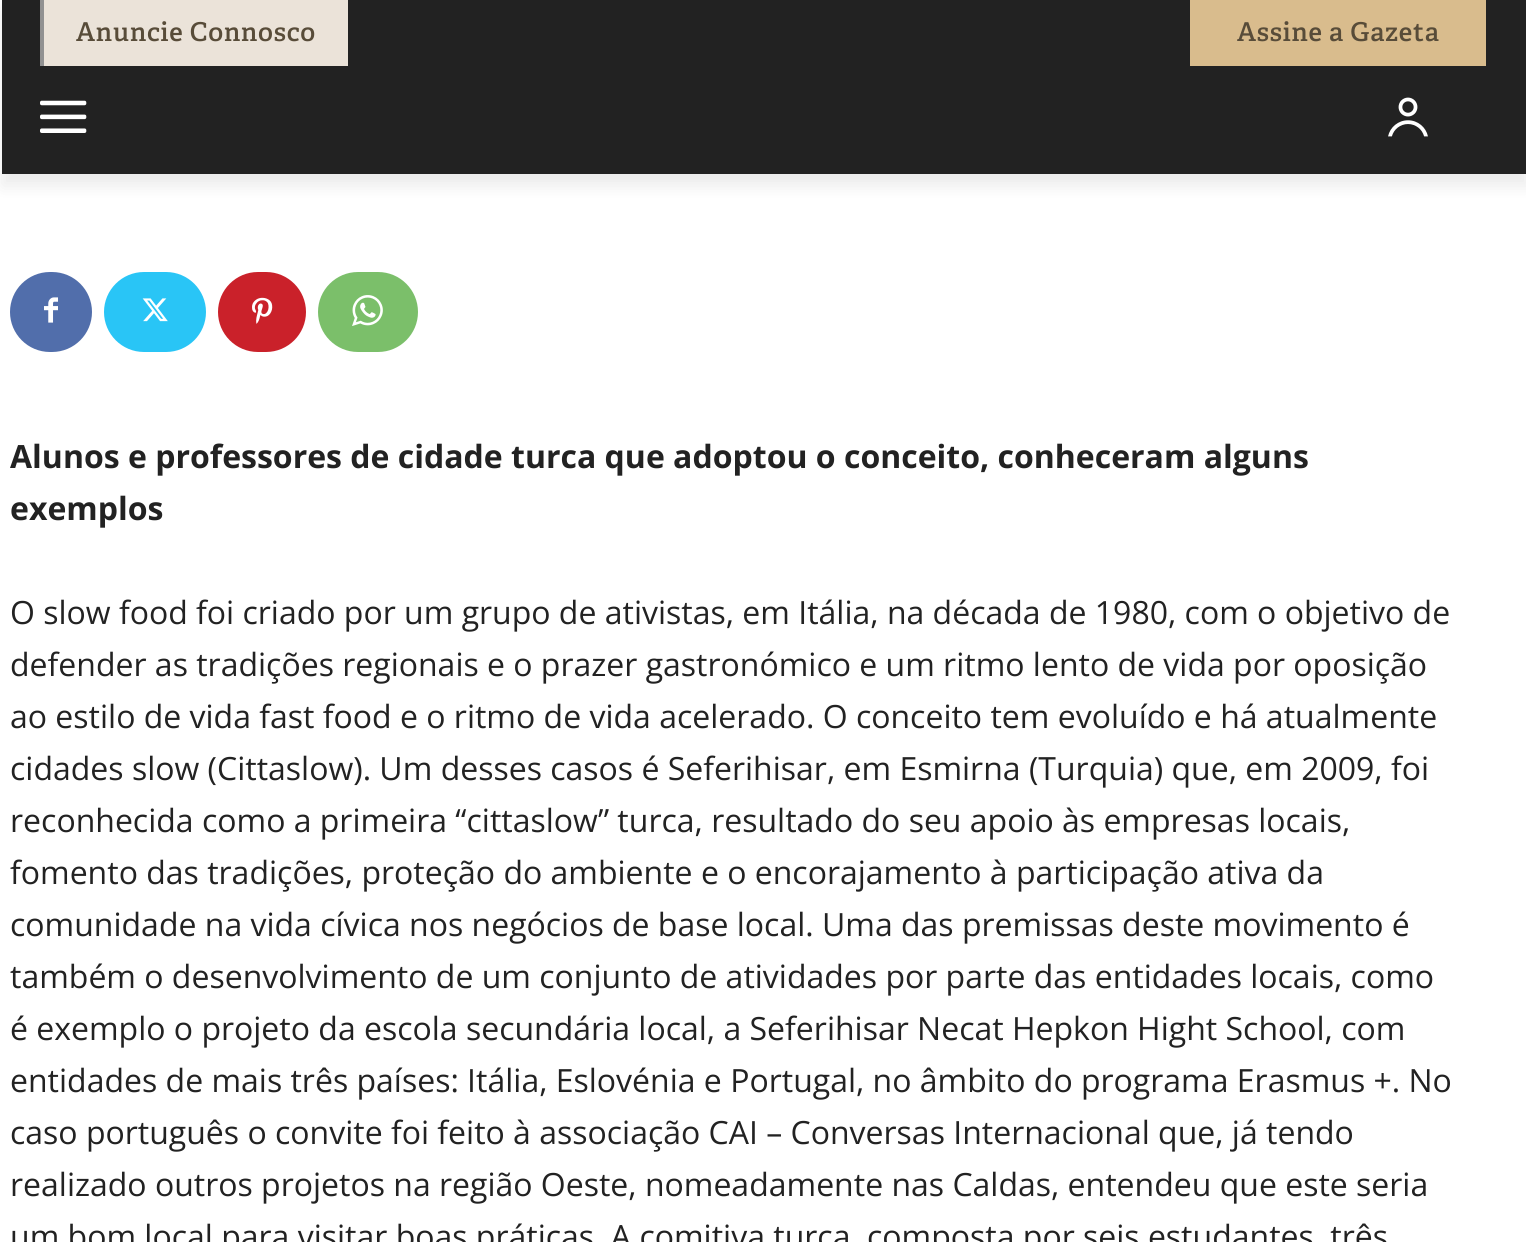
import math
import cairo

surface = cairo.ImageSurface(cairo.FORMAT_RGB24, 1526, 1242)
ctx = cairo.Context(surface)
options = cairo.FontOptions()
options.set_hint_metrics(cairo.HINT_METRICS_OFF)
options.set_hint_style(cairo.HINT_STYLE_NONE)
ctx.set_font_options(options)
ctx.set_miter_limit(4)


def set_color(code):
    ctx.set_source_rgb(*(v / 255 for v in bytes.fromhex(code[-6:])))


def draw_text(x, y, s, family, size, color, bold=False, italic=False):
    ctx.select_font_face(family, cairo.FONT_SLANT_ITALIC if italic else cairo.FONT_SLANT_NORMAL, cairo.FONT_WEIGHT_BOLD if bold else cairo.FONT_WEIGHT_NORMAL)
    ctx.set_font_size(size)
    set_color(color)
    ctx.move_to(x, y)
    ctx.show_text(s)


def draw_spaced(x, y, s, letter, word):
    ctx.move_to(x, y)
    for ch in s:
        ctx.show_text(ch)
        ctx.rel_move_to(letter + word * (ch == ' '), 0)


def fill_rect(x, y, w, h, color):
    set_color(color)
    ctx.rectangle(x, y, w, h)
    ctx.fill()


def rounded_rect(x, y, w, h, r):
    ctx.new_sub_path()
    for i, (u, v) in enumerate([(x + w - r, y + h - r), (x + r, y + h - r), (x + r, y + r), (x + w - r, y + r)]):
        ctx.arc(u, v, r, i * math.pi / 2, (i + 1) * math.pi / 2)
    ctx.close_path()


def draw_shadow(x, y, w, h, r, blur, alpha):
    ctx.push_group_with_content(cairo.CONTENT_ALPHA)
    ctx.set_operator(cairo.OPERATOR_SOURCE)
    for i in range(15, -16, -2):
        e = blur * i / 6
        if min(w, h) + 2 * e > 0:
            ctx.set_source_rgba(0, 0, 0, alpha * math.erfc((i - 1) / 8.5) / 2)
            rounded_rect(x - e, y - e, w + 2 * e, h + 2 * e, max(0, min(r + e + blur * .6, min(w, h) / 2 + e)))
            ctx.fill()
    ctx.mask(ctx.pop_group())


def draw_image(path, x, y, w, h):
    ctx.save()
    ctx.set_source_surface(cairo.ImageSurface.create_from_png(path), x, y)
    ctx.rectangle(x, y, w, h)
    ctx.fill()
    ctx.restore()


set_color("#ffffff")
ctx.paint()
fill_rect(2, 0, 1524, 174, "#222222")
fill_rect(40, 0, 4, 66, "#919191")
fill_rect(44, 0, 304, 66, "#ebe3d9")
fill_rect(1190, 0, 296, 66, "#d9bc8d")
draw_image("assets/img1.png", 40, 100, 47, 33)
ctx.save()
ctx.set_fill_rule(cairo.FILL_RULE_EVEN_ODD)
ctx.new_path()
ctx.move_to(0, 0)
ctx.line_to(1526, 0)
ctx.line_to(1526, 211)
ctx.line_to(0, 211)
ctx.close_path()
ctx.move_to(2, 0)
ctx.line_to(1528, 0)
ctx.line_to(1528, 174)
ctx.line_to(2, 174)
ctx.close_path()
ctx.clip()
set_color("#000000")
draw_shadow(2, 12, 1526, 174, 0, 8, 0.08)
ctx.restore()
ctx.select_font_face("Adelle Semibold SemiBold")
ctx.set_font_size(26)
set_color("#584c39")
draw_spaced(76, 41, "Anuncie Connosco", 0.75, 0)
draw_spaced(1237, 41, "Assine a Gazeta", 0.75, 0)
draw_image("assets/img2.png", 1388, 97, 40, 40)
set_color("#516eab")
rounded_rect(10, 272, 82, 80, 40)
ctx.fill()
draw_image("assets/img3.png", 44, 297, 14, 26)
set_color("#29c5f6")
rounded_rect(104, 272, 102, 80, 40)
ctx.fill()
draw_image("assets/img4.png", 142, 298, 26, 24)
set_color("#ca212a")
rounded_rect(218, 272, 88, 80, 40)
ctx.fill()
draw_image("assets/img5.png", 252, 297, 21, 27)
set_color("#7bbf6a")
rounded_rect(318, 272, 100, 80, 40)
ctx.fill()
draw_image("assets/img6.png", 352, 295, 31, 31)
draw_text(10, 468, "Alunos e professores de cidade turca que adoptou o conceito, conheceram alguns", "Open Sans", 32, "#222222", bold=True)
draw_text(10, 520, "exemplos", "Open Sans", 32, "#222222", bold=True)
draw_text(10, 624, "O slow food foi criado por um grupo de ativistas, em Itália, na década de 1980, com o objetivo de", "Open Sans", 32, "#222222")
draw_text(10, 676, "defender as tradições regionais e o prazer gastronómico e um ritmo lento de vida por oposição", "Open Sans", 32, "#222222")
draw_text(10, 728, "ao estilo de vida fast food e o ritmo de vida acelerado. O conceito tem evoluído e há atualmente", "Open Sans", 32, "#222222")
draw_text(10, 780, "cidades slow (Cittaslow). Um desses casos é Seferihisar, em Esmirna (Turquia) que, em 2009, foi", "Open Sans", 32, "#222222")
draw_text(10, 832, "reconhecida como a primeira “cittaslow” turca, resultado do seu apoio às empresas locais,", "Open Sans", 32, "#222222")
draw_text(10, 884, "fomento das tradições, proteção do ambiente e o encorajamento à participação ativa da", "Open Sans", 32, "#222222")
draw_text(10, 936, "comunidade na vida cívica nos negócios de base local. Uma das premissas deste movimento é", "Open Sans", 32, "#222222")
draw_text(10, 988, "também o desenvolvimento de um conjunto de atividades por parte das entidades locais, como", "Open Sans", 32, "#222222")
draw_text(10, 1040, "é exemplo o projeto da escola secundária local, a Seferihisar Necat Hepkon Hight School, com", "Open Sans", 32, "#222222")
draw_text(10, 1092, "entidades de mais três países: Itália, Eslovénia e Portugal, no âmbito do programa Erasmus +. No", "Open Sans", 32, "#222222")
draw_text(10, 1144, "caso português o convite foi feito à associação CAI – Conversas Internacional que, já tendo", "Open Sans", 32, "#222222")
draw_text(10, 1196, "realizado outros projetos na região Oeste, nomeadamente nas Caldas, entendeu que este seria", "Open Sans", 32, "#222222")
draw_text(10, 1248, "um bom local para visitar boas práticas. A comitiva turca, composta por seis estudantes, três", "Open Sans", 32, "#222222")
surface.write_to_png("output.png")
